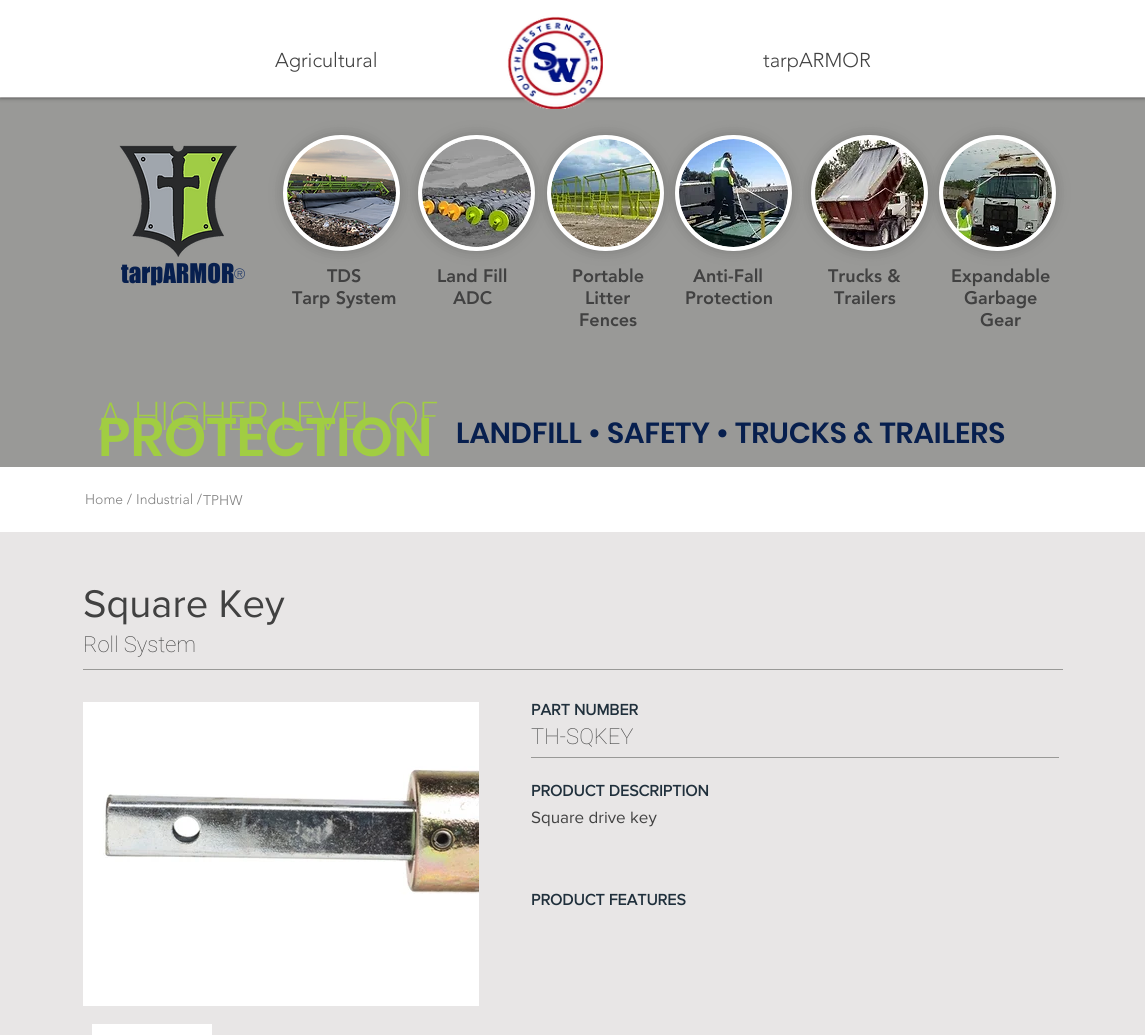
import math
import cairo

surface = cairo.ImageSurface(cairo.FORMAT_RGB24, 1145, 1035)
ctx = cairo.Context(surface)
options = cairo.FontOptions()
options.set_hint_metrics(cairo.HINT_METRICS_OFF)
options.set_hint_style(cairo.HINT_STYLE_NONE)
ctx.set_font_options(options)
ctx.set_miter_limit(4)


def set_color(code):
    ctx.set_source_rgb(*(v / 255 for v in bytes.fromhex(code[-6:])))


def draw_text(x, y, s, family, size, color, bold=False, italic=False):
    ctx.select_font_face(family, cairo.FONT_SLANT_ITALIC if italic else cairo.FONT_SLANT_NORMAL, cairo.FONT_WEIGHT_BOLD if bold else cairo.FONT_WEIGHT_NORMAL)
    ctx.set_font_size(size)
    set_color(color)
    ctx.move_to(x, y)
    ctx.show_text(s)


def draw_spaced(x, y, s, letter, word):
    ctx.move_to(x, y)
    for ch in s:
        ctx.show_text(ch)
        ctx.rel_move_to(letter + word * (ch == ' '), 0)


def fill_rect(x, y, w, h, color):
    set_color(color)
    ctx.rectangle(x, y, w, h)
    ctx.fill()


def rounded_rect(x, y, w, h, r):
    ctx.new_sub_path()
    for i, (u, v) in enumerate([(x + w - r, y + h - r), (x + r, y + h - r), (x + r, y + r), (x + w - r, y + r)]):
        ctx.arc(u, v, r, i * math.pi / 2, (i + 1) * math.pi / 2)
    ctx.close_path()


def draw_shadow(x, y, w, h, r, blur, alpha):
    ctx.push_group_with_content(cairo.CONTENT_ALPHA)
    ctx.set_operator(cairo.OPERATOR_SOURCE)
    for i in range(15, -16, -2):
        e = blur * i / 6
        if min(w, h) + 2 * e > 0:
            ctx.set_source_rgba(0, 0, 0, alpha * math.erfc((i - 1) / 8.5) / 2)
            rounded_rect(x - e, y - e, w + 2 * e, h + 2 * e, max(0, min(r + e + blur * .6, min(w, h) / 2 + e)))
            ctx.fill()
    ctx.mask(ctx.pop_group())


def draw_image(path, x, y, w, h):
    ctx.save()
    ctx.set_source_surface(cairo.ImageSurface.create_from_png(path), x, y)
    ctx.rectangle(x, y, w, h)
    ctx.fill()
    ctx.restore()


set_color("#e8e6e6")
ctx.paint()
fill_rect(0, 98, 1145, 369, "#999997")
set_color("#000000")
draw_shadow(0, 0, 1145, 97, 0, 2.5, 0.7)
fill_rect(0, 0, 1145, 97, "#ffffff")
draw_image("assets/img1.png", 507, 16, 96, 93)
draw_text(275, 67, "Agricultural", "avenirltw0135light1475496 Light", 20, "#414141")
draw_text(763, 67, "tarpARMOR", "avenirltw0135light1475496 Light", 20, "#414141")
draw_image("assets/img2.png", 119, 145, 118, 112)
draw_text(121, 283, "tarpARMOR", "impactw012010", 25, "#071f4e")
ctx.select_font_face("futura Light")
ctx.set_font_size(14)
set_color("#243c6b")
draw_spaced(234, 279, "®", 1, 0)
set_color("#000000")
draw_shadow(283, 135, 117, 116, 58, 7, 0.2)
set_color("#ffffff")
rounded_rect(285, 137, 113, 112, 56)
ctx.fill_preserve()
ctx.set_line_width(4)
ctx.stroke()
draw_image("assets/img3.png", 287, 139, 109, 108)
set_color("#000000")
draw_shadow(418, 135, 117, 116, 58, 7, 0.2)
set_color("#ffffff")
rounded_rect(420, 137, 113, 112, 56)
ctx.fill_preserve()
ctx.stroke()
draw_image("assets/img4.png", 422, 139, 109, 108)
set_color("#000000")
draw_shadow(547, 135, 117, 116, 58, 7, 0.2)
set_color("#ffffff")
rounded_rect(549, 137, 113, 112, 56)
ctx.fill_preserve()
ctx.stroke()
draw_image("assets/img5.png", 551, 139, 109, 108)
set_color("#000000")
draw_shadow(675, 135, 117, 116, 58, 7, 0.2)
set_color("#ffffff")
rounded_rect(677, 137, 113, 112, 56)
ctx.fill_preserve()
ctx.stroke()
draw_image("assets/img6.png", 679, 139, 109, 108)
set_color("#000000")
draw_shadow(811, 135, 117, 116, 58, 7, 0.2)
set_color("#ffffff")
rounded_rect(813, 137, 113, 112, 56)
ctx.fill_preserve()
ctx.stroke()
draw_image("assets/img7.png", 815, 139, 109, 108)
set_color("#000000")
draw_shadow(939, 135, 117, 116, 58, 7, 0.2)
set_color("#ffffff")
rounded_rect(941, 137, 113, 112, 56)
ctx.fill_preserve()
ctx.stroke()
draw_image("assets/img8.png", 943, 139, 109, 108)
draw_text(327, 282, "TDS", "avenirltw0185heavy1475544 Black", 18, "#414141")
draw_text(292, 304, "Tarp System", "avenirltw0185heavy1475544 Black", 18, "#414141")
draw_text(437, 282, "Land Fill", "avenirltw0185heavy1475544 Black", 18, "#414141")
draw_text(453, 304, "ADC", "avenirltw0185heavy1475544 Black", 18, "#414141")
draw_text(572, 282, "Portable", "avenirltw0185heavy1475544 Black", 18, "#414141")
draw_text(585, 304, "Litter", "avenirltw0185heavy1475544 Black", 18, "#414141")
draw_text(579, 326, "Fences", "avenirltw0185heavy1475544 Black", 18, "#414141")
draw_text(693, 282, "Anti-Fall", "avenirltw0185heavy1475544 Black", 18, "#414141")
draw_text(685, 304, "Protection", "avenirltw0185heavy1475544 Black", 18, "#414141")
draw_text(828, 282, "Trucks &", "avenirltw0185heavy1475544 Black", 18, "#414141")
draw_text(834, 304, "Trailers", "avenirltw0185heavy1475544 Black", 18, "#414141")
draw_text(951, 282, "Expandable", "avenirltw0185heavy1475544 Black", 18, "#414141")
draw_text(964, 304, "Garbage", "avenirltw0185heavy1475544 Black", 18, "#414141")
draw_text(980, 326, "Gear", "avenirltw0185heavy1475544 Black", 18, "#414141")
draw_text(98, 430, "A HIGHER LEVEL OF", "Poppins ExtraLight", 40, "#a1cd42")
draw_text(98, 456, "PROTECTION", "Poppins SemiBold", 54, "#a1cd42")
draw_text(456, 443, "LANDFILL • SAFETY • TRUCKS & TRAILERS", "Poppins SemiBold", 29, "#071f4e")
fill_rect(0, 467, 1145, 65, "#ffffff")
draw_text(85, 504, "Home /", "avenirltw0135light1475496 Light", 14, "#808080")
draw_text(136, 504, "Industrial /", "avenirltw0135light1475496 Light", 14, "#808080")
draw_text(203, 505, "TPHW", "avenirltw0135light1475496 Light", 14, "#808080")
draw_text(83, 617, "Square Key", "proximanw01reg", 40, "#414141")
draw_text(83, 652, "Roll System", "Roboto Thin", 22, "#414141")
fill_rect(83, 669, 980, 1, "#999997")
draw_image("assets/img9.png", 83, 702, 396, 304)
fill_rect(92, 1024, 120, 11, "#ffffff")
draw_text(531, 715, "PART NUMBER", "proximanw01reg", 16, "#20303c", bold=True)
draw_text(531, 744, "TH-SQKEY", "Roboto Thin", 22, "#414141")
fill_rect(531, 757, 528, 1, "#999997")
draw_text(531, 796, "PRODUCT DESCRIPTION", "proximanw01reg", 16, "#20303c", bold=True)
draw_text(531, 823, "Square drive key", "proximanw01reg", 17, "#414141")
draw_text(531, 905, "PRODUCT FEATURES", "proximanw01reg", 16, "#20303c", bold=True)
surface.write_to_png("output.png")
